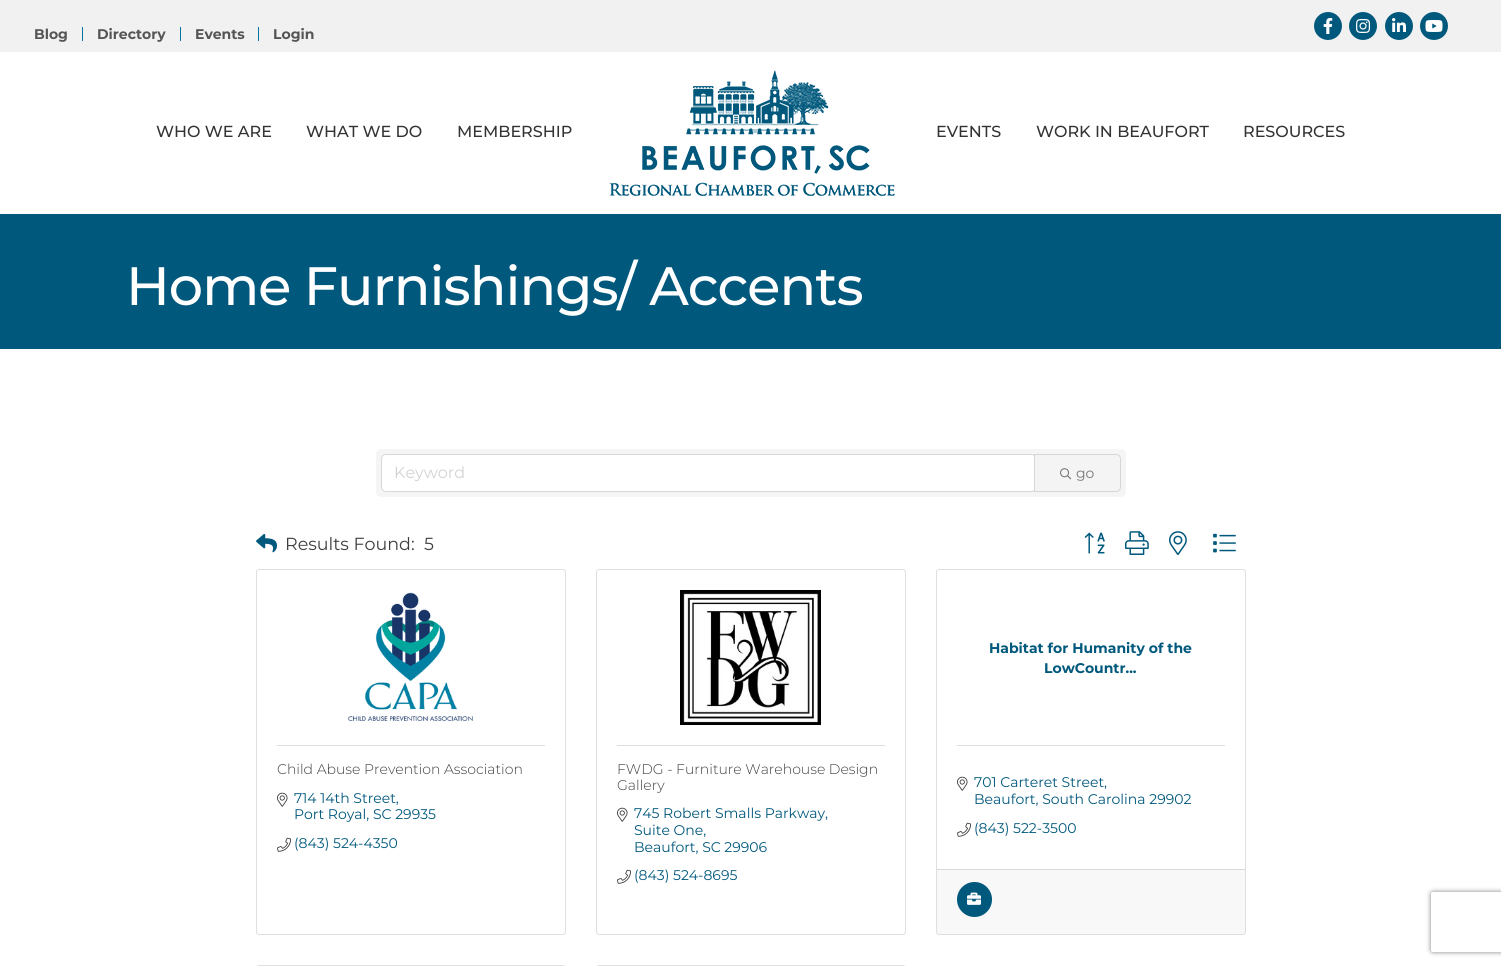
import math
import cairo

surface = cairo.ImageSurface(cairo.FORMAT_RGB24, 1501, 966)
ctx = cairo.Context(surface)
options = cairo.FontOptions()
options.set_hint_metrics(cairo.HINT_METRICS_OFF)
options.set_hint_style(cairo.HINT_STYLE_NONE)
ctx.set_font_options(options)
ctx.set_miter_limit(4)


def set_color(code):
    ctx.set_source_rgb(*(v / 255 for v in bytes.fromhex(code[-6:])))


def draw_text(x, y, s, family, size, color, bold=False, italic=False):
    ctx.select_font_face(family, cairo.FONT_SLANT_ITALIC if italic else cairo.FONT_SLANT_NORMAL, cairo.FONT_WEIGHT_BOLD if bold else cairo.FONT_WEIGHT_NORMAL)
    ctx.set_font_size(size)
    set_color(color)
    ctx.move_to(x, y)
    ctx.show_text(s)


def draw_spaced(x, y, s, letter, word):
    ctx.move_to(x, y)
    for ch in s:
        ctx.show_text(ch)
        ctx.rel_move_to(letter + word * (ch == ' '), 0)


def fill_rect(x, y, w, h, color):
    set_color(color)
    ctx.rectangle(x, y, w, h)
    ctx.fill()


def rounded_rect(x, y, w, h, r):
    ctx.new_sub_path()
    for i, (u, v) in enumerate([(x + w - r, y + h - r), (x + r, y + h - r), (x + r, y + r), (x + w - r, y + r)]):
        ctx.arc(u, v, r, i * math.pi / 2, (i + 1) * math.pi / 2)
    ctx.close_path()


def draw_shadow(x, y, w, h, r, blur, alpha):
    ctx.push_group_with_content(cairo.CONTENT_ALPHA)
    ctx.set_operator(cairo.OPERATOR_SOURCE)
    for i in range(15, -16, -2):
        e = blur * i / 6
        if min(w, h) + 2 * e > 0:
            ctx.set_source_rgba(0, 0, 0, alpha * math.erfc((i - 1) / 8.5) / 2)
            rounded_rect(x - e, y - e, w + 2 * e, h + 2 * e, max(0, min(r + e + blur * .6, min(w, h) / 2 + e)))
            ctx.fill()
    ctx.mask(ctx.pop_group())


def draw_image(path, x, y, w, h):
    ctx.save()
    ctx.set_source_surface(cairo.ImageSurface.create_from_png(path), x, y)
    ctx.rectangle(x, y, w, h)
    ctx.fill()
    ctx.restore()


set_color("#ffffff")
ctx.paint()
fill_rect(0, 0, 1501, 52, "#f1f1f1")
draw_text(34, 39, "Blog", "Montserrat", 14, "#555555", bold=True)
fill_rect(82, 27, 1, 14, "#0075a3")
draw_text(97, 39, "Directory", "Montserrat", 14, "#555555", bold=True)
fill_rect(180, 27, 1, 14, "#0075a3")
draw_text(195, 39, "Events", "Montserrat", 14, "#555555", bold=True)
fill_rect(258, 27, 1, 14, "#0075a3")
draw_text(273, 39, "Login", "Montserrat", 14, "#555555", bold=True)
set_color("#00587c")
ctx.new_path()
ctx.arc(1328, 26, 14, 0, 2 * math.pi)
ctx.fill()
draw_image("assets/img1.png", 1323, 18, 10, 16)
ctx.arc(1363, 26, 14, 0, 2 * math.pi)
ctx.fill()
draw_image("assets/img2.png", 1356, 19, 15, 14)
ctx.arc(1399, 26, 14, 0, 2 * math.pi)
ctx.fill()
draw_image("assets/img3.png", 1392, 18, 14, 14)
ctx.arc(1434, 26, 14, 0, 2 * math.pi)
ctx.fill()
draw_image("assets/img4.png", 1425, 20, 18, 12)
draw_text(156, 137, "WHO WE ARE", "Montserrat Medium", 16, "#333333")
draw_text(306, 137, "WHAT WE DO", "Montserrat Medium", 16, "#333333")
draw_text(457, 137, "MEMBERSHIP", "Montserrat Medium", 16, "#333333")
draw_image("assets/img5.png", 609, 70, 286, 126)
draw_text(936, 137, "EVENTS", "Montserrat Medium", 16, "#333333")
draw_text(1036, 137, "WORK IN BEAUFORT", "Montserrat Medium", 16, "#333333")
draw_text(1243, 137, "RESOURCES", "Montserrat Medium", 16, "#333333")
fill_rect(0, 214, 1501, 135, "#00587c")
ctx.set_font_size(54)
set_color("#ffffff")
draw_spaced(126, 305, "Home Furnishings/ Accents", -1, 0)
set_color("#f5f5f5")
rounded_rect(376, 449, 750, 48, 5)
ctx.fill()
set_color("#ffffff")
ctx.new_path()
ctx.move_to(386, 455)
ctx.line_to(1032, 455)
ctx.curve_to(1033, 455, 1034, 456, 1034, 457)
ctx.line_to(1034, 489)
ctx.curve_to(1034, 490, 1033, 491, 1032, 491)
ctx.line_to(386, 491)
ctx.curve_to(384, 491, 382, 489, 382, 487)
ctx.line_to(382, 459)
ctx.curve_to(382, 457, 384, 455, 386, 455)
ctx.close_path()
ctx.fill()
ctx.new_path()
ctx.move_to(386, 454.5)
ctx.line_to(1032, 454.5)
ctx.curve_to(1033.5, 454.5, 1034.5, 455.5, 1034.5, 457)
ctx.line_to(1034.5, 489)
ctx.curve_to(1034.5, 490.5, 1033.5, 491.5, 1032, 491.5)
ctx.line_to(386, 491.5)
ctx.curve_to(383.5, 491.5, 381.5, 489.5, 381.5, 487)
ctx.line_to(381.5, 459)
ctx.curve_to(381.5, 456.5, 383.5, 454.5, 386, 454.5)
ctx.close_path()
ctx.set_source_rgba(0, 0, 0, 0.12)
ctx.set_line_width(1)
ctx.stroke()
draw_text(394, 478, "Keyword", "Montserrat", 16, "#d2d2d2")
set_color("#f4f4f4")
ctx.new_path()
ctx.move_to(1034.5, 454.5)
ctx.line_to(1116, 454.5)
ctx.curve_to(1118.5, 454.5, 1120.5, 456.5, 1120.5, 459)
ctx.line_to(1120.5, 487)
ctx.curve_to(1120.5, 489.5, 1118.5, 491.5, 1116, 491.5)
ctx.line_to(1034.5, 491.5)
ctx.close_path()
ctx.fill_preserve()
set_color("#d6d6d6")
ctx.stroke()
draw_image("assets/img6.png", 1060, 468, 12, 12)
draw_text(1076, 478, "go", "Montserrat", 14, "#777777")
draw_image("assets/img7.png", 256, 534, 21, 19)
draw_text(285, 550, "Results Found:", "Montserrat", 17.5, "#3f3f3f")
draw_text(424, 550, "5", "Montserrat", 17.5, "#3f3f3f")
draw_image("assets/img8.png", 1084, 532, 21, 22)
draw_image("assets/img9.png", 1125, 531, 24, 24)
draw_image("assets/img10.png", 1169, 531, 18, 24)
draw_image("assets/img11.png", 1213, 533, 23, 20)
rounded_rect(256.5, 569.5, 309, 365, 2.5)
set_color("#dfdfdf")
ctx.stroke()
draw_image("assets/img12.png", 347, 592, 126, 130)
fill_rect(277, 745, 268, 1, "#dfdfdf")
draw_text(277, 774, "Child Abuse Prevention Association", "Montserrat Light", 14, "#3f3f3f")
draw_image("assets/img13.png", 277, 792, 11, 15)
draw_text(294, 803, "714 14th Street,", "Montserrat", 14, "#00587c")
draw_text(294, 819, "Port Royal, SC 29935", "Montserrat", 14, "#00587c")
draw_image("assets/img14.png", 277, 837, 14, 15)
draw_text(294, 848, "(843) 524-4350", "Montserrat", 14, "#00587c")
rounded_rect(596.5, 569.5, 309, 365, 2.5)
set_color("#dfdfdf")
ctx.stroke()
draw_image("assets/img15.png", 680, 590, 141, 135)
fill_rect(617, 745, 268, 1, "#dfdfdf")
draw_text(617, 774, "FWDG - Furniture Warehouse Design", "Montserrat Light", 14, "#3f3f3f")
draw_text(617, 790, "Gallery", "Montserrat Light", 14, "#3f3f3f")
draw_image("assets/img13.png", 617, 807, 11, 15)
draw_text(634, 818, "745 Robert Smalls Parkway,", "Montserrat", 14, "#00587c")
draw_text(634, 835, "Suite One,", "Montserrat", 14, "#00587c")
draw_text(634, 852, "Beaufort, SC 29906", "Montserrat", 14, "#00587c")
draw_image("assets/img14.png", 617, 869, 14, 15)
draw_text(634, 880, "(843) 524-8695", "Montserrat", 14, "#00587c")
rounded_rect(936.5, 569.5, 309, 365, 2.5)
set_color("#dfdfdf")
ctx.stroke()
draw_text(989, 653, "Habitat for Humanity of the", "Montserrat", 14, "#00587c", bold=True)
draw_text(1044, 673, "LowCountr...", "Montserrat", 14, "#00587c", bold=True)
fill_rect(957, 745, 268, 1, "#dfdfdf")
draw_image("assets/img13.png", 957, 776, 11, 15)
draw_text(974, 787, "701 Carteret Street,", "Montserrat", 14, "#00587c")
draw_text(974, 804, "Beaufort, South Carolina 29902", "Montserrat", 14, "#00587c")
draw_image("assets/img14.png", 957, 822, 14, 15)
draw_text(974, 833, "(843) 522-3500", "Montserrat", 14, "#00587c")
ctx.set_source_rgba(0, 0, 0, 0.03)
ctx.rectangle(937, 870, 308, 64)
ctx.fill()
fill_rect(937, 869, 308, 1, "#d8d8d8")
set_color("#00587c")
ctx.arc(974.5, 899.5, 17.5, 0, 2 * math.pi)
ctx.fill()
draw_image("assets/img16.png", 967, 892, 14, 13)
rounded_rect(256.5, 965.5, 309, 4, 2.5)
set_color("#dfdfdf")
ctx.stroke()
rounded_rect(596.5, 965.5, 309, 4, 2.5)
ctx.stroke()
ctx.save()
ctx.set_fill_rule(cairo.FILL_RULE_EVEN_ODD)
ctx.new_path()
ctx.move_to(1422, 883)
ctx.line_to(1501, 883)
ctx.line_to(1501, 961)
ctx.line_to(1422, 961)
ctx.close_path()
ctx.move_to(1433, 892)
ctx.line_to(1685, 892)
ctx.curve_to(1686, 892, 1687, 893, 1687, 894)
ctx.line_to(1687, 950)
ctx.curve_to(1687, 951, 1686, 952, 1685, 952)
ctx.line_to(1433, 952)
ctx.curve_to(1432, 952, 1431, 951, 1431, 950)
ctx.line_to(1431, 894)
ctx.curve_to(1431, 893, 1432, 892, 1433, 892)
ctx.close_path()
ctx.clip()
set_color("#808080")
draw_shadow(1431, 892, 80, 60, 2, 2.5, 1)
ctx.restore()
surface.write_to_png("output.png")
